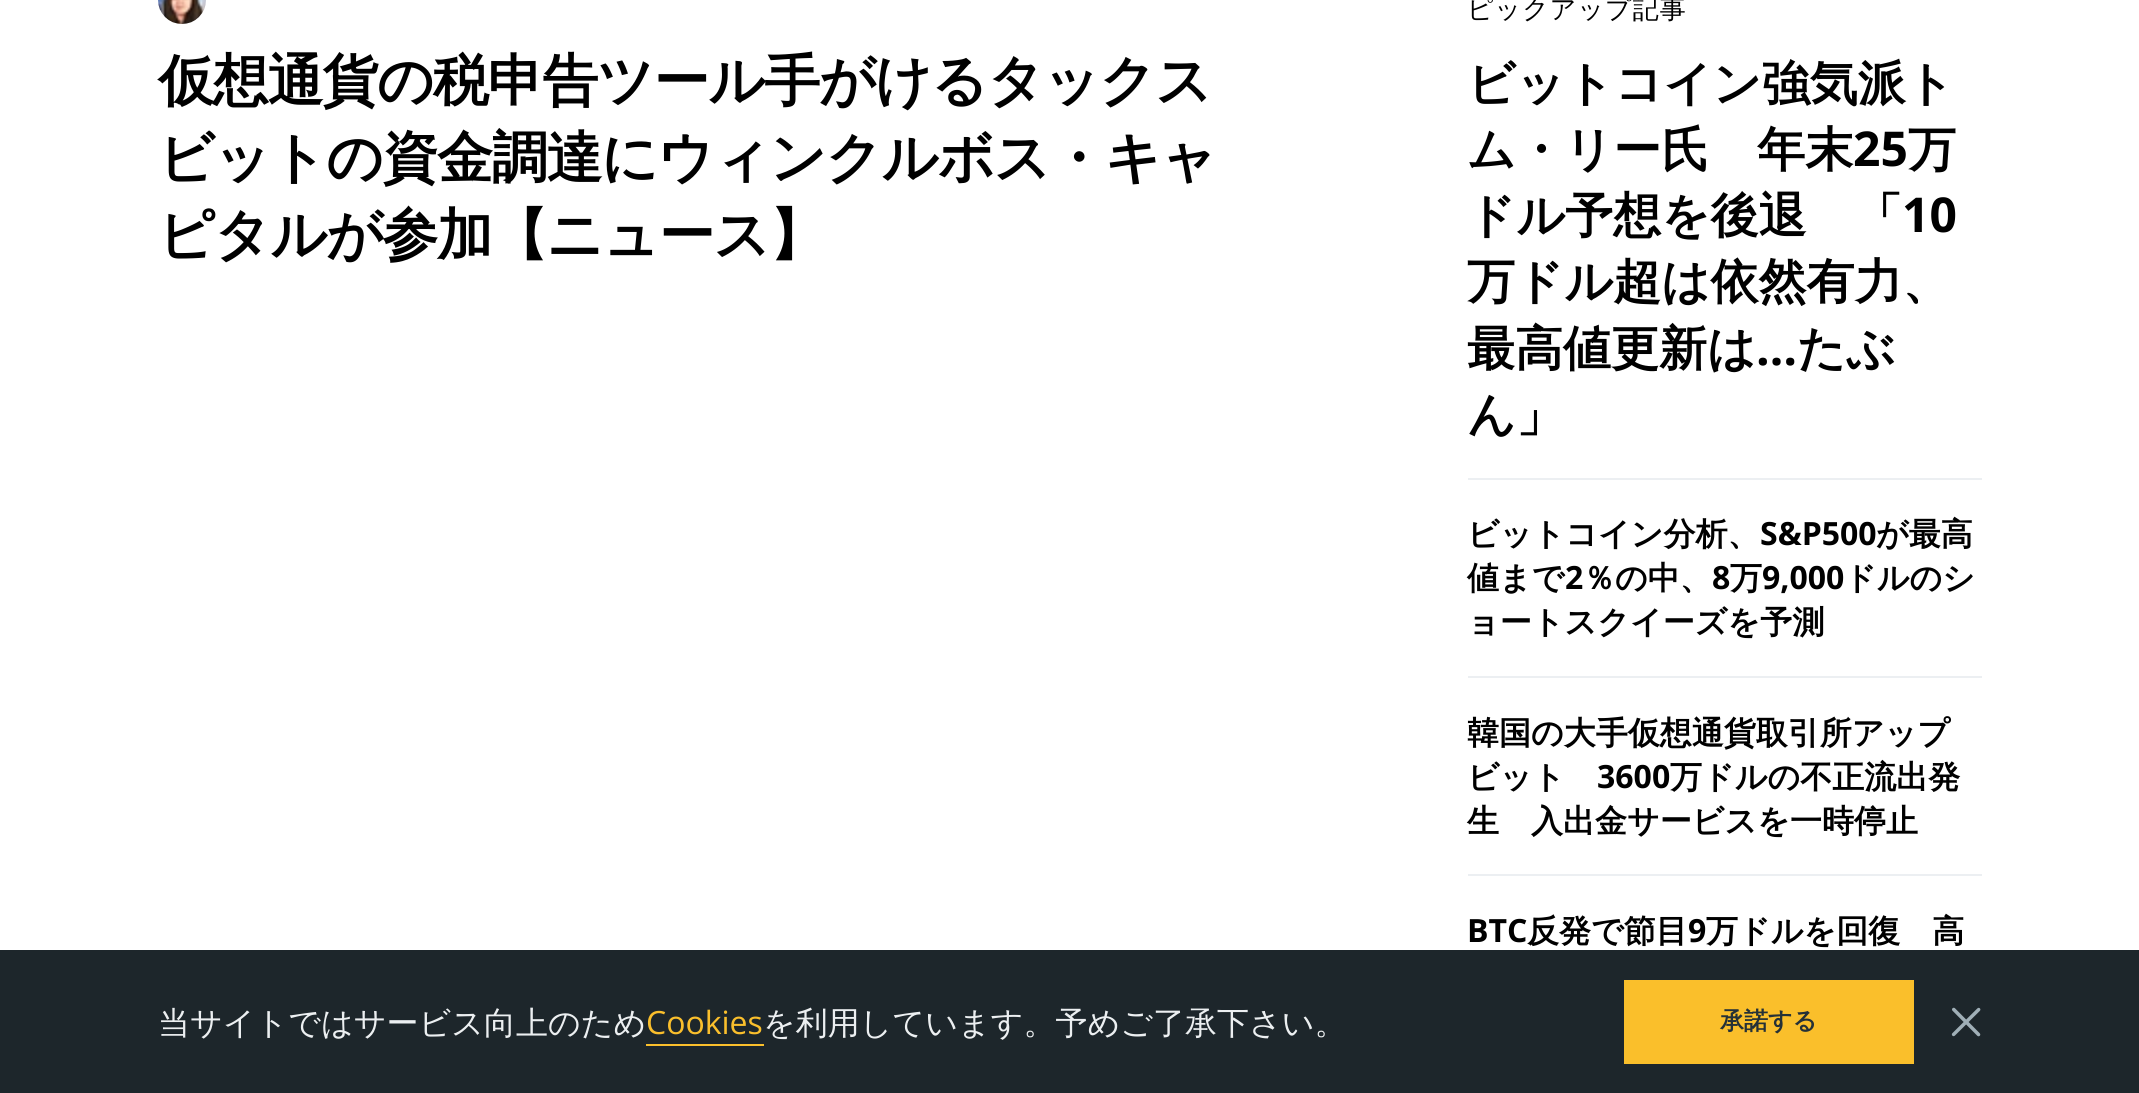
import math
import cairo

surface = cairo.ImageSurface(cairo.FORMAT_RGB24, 2139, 1093)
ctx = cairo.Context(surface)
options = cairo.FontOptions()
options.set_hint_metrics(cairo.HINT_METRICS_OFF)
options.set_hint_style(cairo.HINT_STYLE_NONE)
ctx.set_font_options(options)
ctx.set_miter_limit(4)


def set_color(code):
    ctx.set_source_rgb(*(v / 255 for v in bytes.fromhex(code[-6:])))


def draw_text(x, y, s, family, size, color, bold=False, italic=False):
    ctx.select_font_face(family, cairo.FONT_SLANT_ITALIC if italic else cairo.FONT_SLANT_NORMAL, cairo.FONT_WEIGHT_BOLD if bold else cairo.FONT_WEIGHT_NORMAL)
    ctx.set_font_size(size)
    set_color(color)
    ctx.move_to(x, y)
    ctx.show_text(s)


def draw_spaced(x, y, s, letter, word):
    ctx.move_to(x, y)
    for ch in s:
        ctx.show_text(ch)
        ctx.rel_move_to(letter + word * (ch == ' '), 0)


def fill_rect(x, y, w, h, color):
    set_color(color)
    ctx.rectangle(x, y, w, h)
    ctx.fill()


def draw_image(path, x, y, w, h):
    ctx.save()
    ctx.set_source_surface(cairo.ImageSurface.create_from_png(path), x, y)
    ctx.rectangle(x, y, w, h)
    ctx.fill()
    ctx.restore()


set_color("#ffffff")
ctx.paint()
draw_image("assets/img1.png", 158, 0, 48, 24)
ctx.select_font_face("WenQuanYi Zen Hei", cairo.FONT_SLANT_NORMAL, cairo.FONT_WEIGHT_BOLD)
ctx.set_font_size(56)
set_color("#000000")
draw_spaced(158, 100, "仮想通貨の税申告ツール手がけるタックス", -1.25, 0)
draw_spaced(158, 177, "ビットの資金調達にウィンクルボス・キャ", -1.25, 0)
draw_spaced(158, 254, "ピタルが参加【ニュース】", -1.25, 0)
ctx.select_font_face("WenQuanYi Zen Hei Medium")
ctx.set_font_size(26)
draw_spaced(1467, 18, "ピックアップ記事", 1, 0)
fill_rect(1468, 478, 514, 2, "#eceff2")
draw_text(1467, 100, "ビットコイン強気派ト", "WenQuanYi Zen Hei", 48, "#000000", bold=True)
draw_text(1467, 166, "ム・リー氏　年末", "WenQuanYi Zen Hei", 48, "#000000", bold=True)
draw_text(1853, 166, "25", "Open Sans", 48, "#000000", bold=True)
draw_text(1908, 166, "万", "WenQuanYi Zen Hei", 48, "#000000", bold=True)
draw_text(1467, 232, "ドル予想を後退　「", "WenQuanYi Zen Hei", 48, "#000000", bold=True)
draw_text(1902, 232, "10", "Open Sans", 48, "#000000", bold=True)
draw_text(1467, 298, "万ドル超は依然有力、", "WenQuanYi Zen Hei", 48, "#000000", bold=True)
draw_text(1467, 365, "最高値更新は", "WenQuanYi Zen Hei", 48, "#000000", bold=True)
draw_text(1756, 365, "…", "Open Sans", 48, "#000000", bold=True)
draw_text(1797, 365, "たぶ", "WenQuanYi Zen Hei", 48, "#000000", bold=True)
draw_text(1467, 431, "ん」", "WenQuanYi Zen Hei", 48, "#000000", bold=True)
fill_rect(1468, 676, 514, 2, "#eceff2")
draw_text(1467, 545, "ビットコイン分析、", "WenQuanYi Zen Hei", 32, "#000000", bold=True)
draw_text(1760, 545, "S&P500", "Open Sans", 32, "#000000", bold=True)
draw_text(1876, 545, "が最高", "WenQuanYi Zen Hei", 32, "#000000", bold=True)
draw_text(1467, 589, "値まで", "WenQuanYi Zen Hei", 32, "#000000", bold=True)
draw_text(1565, 589, "2", "Open Sans", 32, "#000000", bold=True)
draw_text(1583, 589, "％の中、", "WenQuanYi Zen Hei", 32, "#000000", bold=True)
draw_text(1712, 589, "8", "Open Sans", 32, "#000000", bold=True)
draw_text(1730, 589, "万", "WenQuanYi Zen Hei", 32, "#000000", bold=True)
draw_text(1762, 589, "9,000", "Open Sans", 32, "#000000", bold=True)
draw_text(1844, 589, "ドルのシ", "WenQuanYi Zen Hei", 32, "#000000", bold=True)
draw_text(1467, 633, "ョートスクイーズを予測", "WenQuanYi Zen Hei", 32, "#000000", bold=True)
fill_rect(1468, 874, 514, 2, "#eceff2")
draw_text(1467, 744, "韓国の大手仮想通貨取引所アップ", "WenQuanYi Zen Hei", 32, "#000000", bold=True)
draw_text(1467, 788, "ビット", "WenQuanYi Zen Hei", 32, "#000000", bold=True)
draw_text(1597, 788, "3600", "Open Sans", 32, "#000000", bold=True)
draw_text(1670, 788, "万ドルの不正流出発", "WenQuanYi Zen Hei", 32, "#000000", bold=True)
draw_text(1467, 832, "生　入出金サービスを一時停止", "WenQuanYi Zen Hei", 32, "#000000", bold=True)
draw_text(1467, 942, "BTC", "Open Sans", 32, "#000000", bold=True)
draw_text(1527, 942, "反発で節目", "WenQuanYi Zen Hei", 32, "#000000", bold=True)
draw_text(1688, 942, "9", "Open Sans", 32, "#000000", bold=True)
draw_text(1706, 942, "万ドルを回復　高", "WenQuanYi Zen Hei", 32, "#000000", bold=True)
fill_rect(0, 950, 2139, 143, "#1d262b")
draw_text(158, 1034, "当サイトではサービス向上のため", "WenQuanYi Zen Hei Medium", 32, "#eceff1")
draw_text(646, 1034, "Cookies", "Open Sans", 32, "#fabf2c")
fill_rect(646, 1044, 118, 2, "#fabf2c")
draw_text(763, 1034, "を利用しています。予めご了承下さい。", "WenQuanYi Zen Hei Medium", 32, "#eceff1")
fill_rect(1624, 980, 290, 84, "#fabf2b")
draw_text(1720, 1029, "承諾する", "WenQuanYi Zen Hei", 24, "#253137", bold=True)
draw_image("assets/img2.png", 1951, 1007, 30, 30)
surface.write_to_png("output.png")
